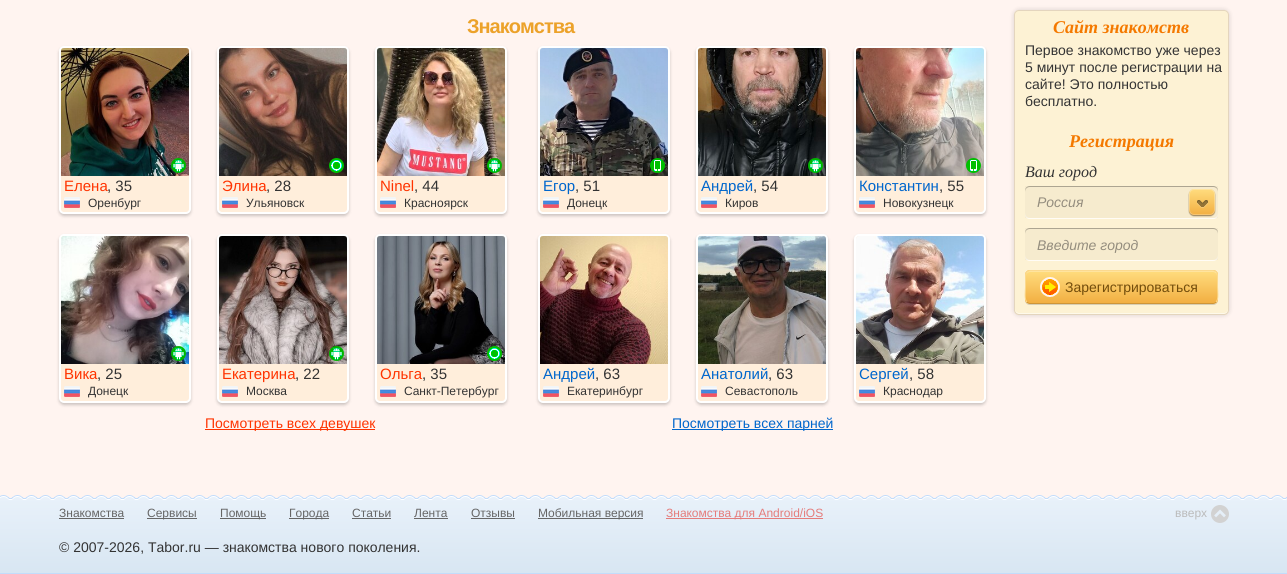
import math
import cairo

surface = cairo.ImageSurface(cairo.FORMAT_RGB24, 1287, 574)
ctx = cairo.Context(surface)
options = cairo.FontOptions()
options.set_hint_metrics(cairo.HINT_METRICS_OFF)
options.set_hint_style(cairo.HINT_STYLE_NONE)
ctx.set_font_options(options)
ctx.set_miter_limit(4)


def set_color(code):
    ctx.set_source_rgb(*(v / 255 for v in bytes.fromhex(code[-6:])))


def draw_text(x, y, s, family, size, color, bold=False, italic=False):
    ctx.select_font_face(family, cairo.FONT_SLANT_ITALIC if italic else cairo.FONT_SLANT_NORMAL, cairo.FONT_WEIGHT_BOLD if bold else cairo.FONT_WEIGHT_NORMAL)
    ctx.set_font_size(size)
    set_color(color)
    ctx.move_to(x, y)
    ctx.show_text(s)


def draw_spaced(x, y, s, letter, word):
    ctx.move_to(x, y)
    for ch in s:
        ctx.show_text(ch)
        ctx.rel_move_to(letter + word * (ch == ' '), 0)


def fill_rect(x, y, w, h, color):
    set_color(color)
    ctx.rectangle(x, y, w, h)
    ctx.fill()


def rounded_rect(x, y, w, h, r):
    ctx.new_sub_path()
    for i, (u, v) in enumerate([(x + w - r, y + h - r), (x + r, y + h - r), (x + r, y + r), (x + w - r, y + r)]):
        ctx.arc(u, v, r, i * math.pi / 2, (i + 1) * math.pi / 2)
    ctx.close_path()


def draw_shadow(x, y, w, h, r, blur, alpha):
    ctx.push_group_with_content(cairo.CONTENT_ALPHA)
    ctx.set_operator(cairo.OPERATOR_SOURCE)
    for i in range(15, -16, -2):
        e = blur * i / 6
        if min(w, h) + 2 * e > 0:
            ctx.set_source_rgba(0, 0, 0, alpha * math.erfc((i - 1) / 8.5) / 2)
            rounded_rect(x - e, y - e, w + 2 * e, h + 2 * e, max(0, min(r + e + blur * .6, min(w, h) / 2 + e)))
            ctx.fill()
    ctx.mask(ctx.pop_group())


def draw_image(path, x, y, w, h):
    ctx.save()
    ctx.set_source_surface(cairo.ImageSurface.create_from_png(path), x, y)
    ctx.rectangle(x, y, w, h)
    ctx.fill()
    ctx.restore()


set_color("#fff4f0")
ctx.paint()
ctx.select_font_face("Liberation Sans", cairo.FONT_SLANT_NORMAL, cairo.FONT_WEIGHT_BOLD)
ctx.set_font_size(20)
set_color("#eca22a")
draw_spaced(467, 33, "Знакомства", -1, 0)
set_color("#000000")
draw_shadow(59, 48, 132, 168, 5, 1.5, 0.2)
set_color("#ffeedb")
rounded_rect(60, 47, 130, 166, 4)
ctx.fill_preserve()
set_color("#ffffff")
ctx.stroke()
draw_image("assets/img1.png", 61, 48, 128, 128)
draw_image("assets/img2.png", 171, 158, 15, 15)
draw_text(64, 191, "Елена", "Liberation Sans", 15, "#ff3300")
draw_text(107, 191, ", 35", "Liberation Sans", 15, "#333333")
draw_image("assets/img3.png", 64, 197, 16, 11)
draw_text(88, 207, "Оренбург", "Liberation Sans", 12, "#333333")
set_color("#000000")
draw_shadow(217, 48, 132, 168, 5, 1.5, 0.2)
set_color("#ffeedb")
rounded_rect(218, 47, 130, 166, 4)
ctx.fill_preserve()
set_color("#ffffff")
ctx.stroke()
draw_image("assets/img4.png", 219, 48, 128, 128)
draw_image("assets/img5.png", 329, 158, 15, 15)
draw_text(222, 191, "Элина", "Liberation Sans", 15, "#ff3300")
draw_text(266, 191, ", 28", "Liberation Sans", 15, "#333333")
draw_image("assets/img3.png", 222, 197, 16, 11)
draw_text(246, 207, "Ульяновск", "Liberation Sans", 12, "#333333")
set_color("#000000")
draw_shadow(375, 48, 132, 168, 5, 1.5, 0.2)
set_color("#ffeedb")
rounded_rect(376, 47, 130, 166, 4)
ctx.fill_preserve()
set_color("#ffffff")
ctx.stroke()
draw_image("assets/img6.png", 377, 48, 128, 128)
draw_image("assets/img7.png", 487, 158, 15, 15)
draw_text(380, 191, "Ninel", "Liberation Sans", 15, "#ff3300")
draw_text(414, 191, ", 44", "Liberation Sans", 15, "#333333")
draw_image("assets/img3.png", 380, 197, 16, 11)
draw_text(404, 207, "Красноярск", "Liberation Sans", 12, "#333333")
set_color("#000000")
draw_shadow(59, 236, 132, 169, 5, 1.5, 0.2)
set_color("#ffeedb")
rounded_rect(60, 235, 130, 167, 4)
ctx.fill_preserve()
set_color("#ffffff")
ctx.stroke()
draw_image("assets/img8.png", 61, 236, 128, 128)
draw_image("assets/img9.png", 171, 346, 15, 15)
draw_text(64, 379, "Вика", "Liberation Sans", 15, "#ff3300")
draw_text(97, 379, ", 25", "Liberation Sans", 15, "#333333")
draw_image("assets/img3.png", 64, 386, 16, 11)
draw_text(88, 395, "Донецк", "Liberation Sans", 12, "#333333")
set_color("#000000")
draw_shadow(217, 236, 132, 169, 5, 1.5, 0.2)
set_color("#ffeedb")
rounded_rect(218, 235, 130, 167, 4)
ctx.fill_preserve()
set_color("#ffffff")
ctx.stroke()
draw_image("assets/img10.png", 219, 236, 128, 128)
draw_image("assets/img11.png", 329, 346, 15, 15)
draw_text(222, 379, "Екатерина", "Liberation Sans", 15, "#ff3300")
draw_text(295, 379, ", 22", "Liberation Sans", 15, "#333333")
draw_image("assets/img3.png", 222, 386, 16, 11)
draw_text(246, 395, "Москва", "Liberation Sans", 12, "#333333")
set_color("#000000")
draw_shadow(375, 236, 132, 169, 5, 1.5, 0.2)
set_color("#ffeedb")
rounded_rect(376, 235, 130, 167, 4)
ctx.fill_preserve()
set_color("#ffffff")
ctx.stroke()
draw_image("assets/img12.png", 377, 236, 128, 128)
draw_image("assets/img13.png", 487, 346, 15, 15)
draw_text(380, 379, "Ольга", "Liberation Sans", 15, "#ff3300")
draw_text(422, 379, ", 35", "Liberation Sans", 15, "#333333")
draw_image("assets/img3.png", 380, 386, 16, 11)
draw_text(404, 395, "Санкт-Петербург", "Liberation Sans", 12, "#333333")
fill_rect(205, 429, 170, 1, "#ff3300")
draw_text(205, 428, "Посмотреть всех девушек", "Liberation Sans", 14, "#ff3300")
set_color("#000000")
draw_shadow(538, 48, 132, 168, 5, 1.5, 0.2)
set_color("#ffeedb")
rounded_rect(539, 47, 130, 166, 4)
ctx.fill_preserve()
set_color("#ffffff")
ctx.stroke()
draw_image("assets/img14.png", 540, 48, 128, 128)
draw_image("assets/img15.png", 650, 158, 15, 15)
draw_text(543, 191, "Егор", "Liberation Sans", 15, "#0066cc")
draw_text(575, 191, ", 51", "Liberation Sans", 15, "#333333")
draw_image("assets/img3.png", 543, 197, 16, 11)
draw_text(567, 207, "Донецк", "Liberation Sans", 12, "#333333")
set_color("#000000")
draw_shadow(696, 48, 132, 168, 5, 1.5, 0.2)
set_color("#ffeedb")
rounded_rect(697, 47, 130, 166, 4)
ctx.fill_preserve()
set_color("#ffffff")
ctx.stroke()
draw_image("assets/img16.png", 698, 48, 128, 128)
draw_image("assets/img17.png", 808, 158, 15, 15)
draw_text(701, 191, "Андрей", "Liberation Sans", 15, "#0066cc")
draw_text(753, 191, ", 54", "Liberation Sans", 15, "#333333")
draw_image("assets/img3.png", 701, 197, 16, 11)
draw_text(725, 207, "Киров", "Liberation Sans", 12, "#333333")
set_color("#000000")
draw_shadow(854, 48, 132, 168, 5, 1.5, 0.2)
set_color("#ffeedb")
rounded_rect(855, 47, 130, 166, 4)
ctx.fill_preserve()
set_color("#ffffff")
ctx.stroke()
draw_image("assets/img18.png", 856, 48, 128, 128)
draw_image("assets/img19.png", 966, 158, 15, 15)
draw_text(859, 191, "Константин", "Liberation Sans", 15, "#0066cc")
draw_text(939, 191, ", 55", "Liberation Sans", 15, "#333333")
draw_image("assets/img3.png", 859, 197, 16, 11)
draw_text(883, 207, "Новокузнецк", "Liberation Sans", 12, "#333333")
set_color("#000000")
draw_shadow(538, 236, 132, 169, 5, 1.5, 0.2)
set_color("#ffeedb")
rounded_rect(539, 235, 130, 167, 4)
ctx.fill_preserve()
set_color("#ffffff")
ctx.stroke()
draw_image("assets/img20.png", 540, 236, 128, 128)
draw_text(543, 379, "Андрей", "Liberation Sans", 15, "#0066cc")
draw_text(595, 379, ", 63", "Liberation Sans", 15, "#333333")
draw_image("assets/img3.png", 543, 386, 16, 11)
draw_text(567, 395, "Екатеринбург", "Liberation Sans", 12, "#333333")
set_color("#000000")
draw_shadow(696, 236, 132, 169, 5, 1.5, 0.2)
set_color("#ffeedb")
rounded_rect(697, 235, 130, 167, 4)
ctx.fill_preserve()
set_color("#ffffff")
ctx.stroke()
draw_image("assets/img21.png", 698, 236, 128, 128)
draw_text(701, 379, "Анатолий", "Liberation Sans", 15, "#0066cc")
draw_text(768, 379, ", 63", "Liberation Sans", 15, "#333333")
draw_image("assets/img3.png", 701, 386, 16, 11)
draw_text(725, 395, "Севастополь", "Liberation Sans", 12, "#333333")
set_color("#000000")
draw_shadow(854, 236, 132, 169, 5, 1.5, 0.2)
set_color("#ffeedb")
rounded_rect(855, 235, 130, 167, 4)
ctx.fill_preserve()
set_color("#ffffff")
ctx.stroke()
draw_image("assets/img22.png", 856, 236, 128, 128)
draw_text(859, 379, "Сергей", "Liberation Sans", 15, "#0066cc")
draw_text(909, 379, ", 58", "Liberation Sans", 15, "#333333")
draw_image("assets/img3.png", 859, 386, 16, 11)
draw_text(883, 395, "Краснодар", "Liberation Sans", 12, "#333333")
fill_rect(672, 429, 161, 1, "#0066cc")
draw_text(672, 428, "Посмотреть всех парней", "Liberation Sans", 14, "#0066cc")
set_color("#000000")
draw_shadow(1014, 10, 215, 305, 5, 2.5, 0.15)
set_color("#fdf2d4")
rounded_rect(1014, 10, 215, 305, 5)
ctx.fill()
set_color("#fef9ea")
ctx.new_path()
ctx.move_to(1015, 309)
ctx.line_to(1015, 310)
ctx.curve_to(1015, 312, 1017, 314, 1019, 314)
ctx.line_to(1224, 314)
ctx.curve_to(1226, 314, 1228, 312, 1228, 310)
ctx.line_to(1228, 309)
ctx.curve_to(1228, 311, 1226, 313, 1224, 313)
ctx.line_to(1019, 313)
ctx.curve_to(1017, 313, 1015, 311, 1015, 309)
ctx.close_path()
ctx.fill()
rounded_rect(1014.5, 10.5, 214, 304, 4.5)
set_color("#e4d5be")
ctx.set_line_width(1)
ctx.stroke()
draw_text(1053, 33, "Сайт знакомств", "Liberation Serif", 18, "#f47900", bold=True, italic=True)
draw_text(1025, 55, "Первое знакомство уже через", "Liberation Sans", 14, "#333333")
draw_text(1025, 72, "5 минут после регистрации на", "Liberation Sans", 14, "#333333")
draw_text(1025, 89, "сайте! Это полностью", "Liberation Sans", 14, "#333333")
draw_text(1025, 106, "бесплатно.", "Liberation Sans", 14, "#333333")
draw_text(1069, 147, "Регистрация", "Liberation Serif", 18, "#f47900", bold=True, italic=True)
draw_text(1025, 177, "Ваш город", "Liberation Serif", 16, "#333333", italic=True)
set_color("#fffcf6")
ctx.new_path()
ctx.move_to(1025, 213)
ctx.line_to(1025, 214)
ctx.curve_to(1025, 217, 1027, 219, 1030, 219)
ctx.line_to(1213, 219)
ctx.curve_to(1216, 219, 1218, 217, 1218, 214)
ctx.line_to(1218, 213)
ctx.curve_to(1218, 216, 1216, 218, 1213, 218)
ctx.line_to(1030, 218)
ctx.curve_to(1027, 218, 1025, 216, 1025, 213)
ctx.close_path()
ctx.fill()
ctx.set_source_rgba(0, 0, 0, 0.03)
ctx.rectangle(1025, 186, 193, 32)
ctx.fill()
ctx.set_source_rgba(0, 0, 0, 0.3)
ctx.new_path()
ctx.move_to(1030, 187)
ctx.line_to(1213, 187)
ctx.curve_to(1216, 187, 1218, 189, 1218, 192)
ctx.line_to(1218, 191)
ctx.curve_to(1218, 188, 1216, 186, 1213, 186)
ctx.line_to(1030, 186)
ctx.curve_to(1027, 186, 1025, 188, 1025, 191)
ctx.line_to(1025, 192)
ctx.curve_to(1025, 189, 1027, 187, 1030, 187)
ctx.close_path()
ctx.fill()
draw_text(1037, 207, "Россия", "Liberation Sans", 14, "#948d7e", italic=True)
set_color("#7d6133")
draw_shadow(1189, 190, 26, 26, 5, 0.5, 0.75)
gradient = cairo.LinearGradient(1202, 189, 1202, 215)
gradient.add_color_stop_rgba(0, 1, 0.863, 0.494, 1)
gradient.add_color_stop_rgba(1, 0.949, 0.686, 0.259, 1)
ctx.set_source(gradient)
rounded_rect(1189, 189, 26, 26, 5)
ctx.fill()
rounded_rect(1189.5, 189.5, 25, 25, 4.5)
ctx.set_source_rgba(1, 1, 1, 0.25)
ctx.stroke()
draw_image("assets/img23.png", 1197, 200, 11, 8)
set_color("#fffcf6")
ctx.new_path()
ctx.move_to(1025, 255)
ctx.line_to(1025, 256)
ctx.curve_to(1025, 259, 1027, 261, 1030, 261)
ctx.line_to(1213, 261)
ctx.curve_to(1216, 261, 1218, 259, 1218, 256)
ctx.line_to(1218, 255)
ctx.curve_to(1218, 258, 1216, 260, 1213, 260)
ctx.line_to(1030, 260)
ctx.curve_to(1027, 260, 1025, 258, 1025, 255)
ctx.close_path()
ctx.fill()
ctx.set_source_rgba(0, 0, 0, 0.03)
ctx.rectangle(1025, 228, 193, 32)
ctx.fill()
ctx.set_source_rgba(0, 0, 0, 0.3)
ctx.new_path()
ctx.move_to(1030, 229)
ctx.line_to(1213, 229)
ctx.curve_to(1216, 229, 1218, 231, 1218, 234)
ctx.line_to(1218, 233)
ctx.curve_to(1218, 230, 1216, 228, 1213, 228)
ctx.line_to(1030, 228)
ctx.curve_to(1027, 228, 1025, 230, 1025, 233)
ctx.line_to(1025, 234)
ctx.curve_to(1025, 231, 1027, 229, 1030, 229)
ctx.close_path()
ctx.fill()
draw_text(1037, 250, "Введите город", "Liberation Sans", 14, "#948d7e", italic=True)
set_color("#d7ceb4")
ctx.new_path()
ctx.move_to(1025, 299)
ctx.line_to(1025, 300)
ctx.curve_to(1025, 303, 1027, 305, 1030, 305)
ctx.line_to(1213, 305)
ctx.curve_to(1216, 305, 1218, 303, 1218, 300)
ctx.line_to(1218, 299)
ctx.curve_to(1218, 302, 1216, 304, 1213, 304)
ctx.line_to(1030, 304)
ctx.curve_to(1027, 304, 1025, 302, 1025, 299)
ctx.close_path()
ctx.fill()
set_color("#f2af42")
rounded_rect(1025, 270, 193, 34, 5)
ctx.fill()
ctx.save()
rounded_rect(1025, 270, 193, 34, 5)
ctx.clip()
gradient = cairo.LinearGradient(1122, 271, 1122, 303)
gradient.add_color_stop_rgba(0, 1, 0.863, 0.494, 1)
gradient.add_color_stop_rgba(1, 0.949, 0.686, 0.259, 1)
ctx.set_source(gradient)
ctx.rectangle(1025, 271, 193, 32)
ctx.fill()
ctx.restore()
ctx.set_source_rgba(1, 1, 1, 0.25)
ctx.new_path()
ctx.move_to(1030, 272)
ctx.line_to(1213, 272)
ctx.curve_to(1215, 272, 1217, 274, 1217, 276)
ctx.curve_to(1217, 273, 1216, 271, 1213, 271)
ctx.line_to(1029, 271)
ctx.curve_to(1027, 272, 1026, 274, 1026, 276)
ctx.curve_to(1026, 274, 1028, 272, 1030, 272)
ctx.close_path()
ctx.fill()
ctx.new_path()
ctx.move_to(1216, 302)
ctx.curve_to(1215.5, 303, 1214, 303.5, 1213, 303.5)
ctx.line_to(1030, 303.5)
ctx.curve_to(1029, 303.5, 1027.5, 303, 1027, 302)
ctx.set_source_rgba(0, 0, 0, 0.15)
ctx.stroke()
ctx.new_path()
ctx.move_to(1027, 302)
ctx.curve_to(1024, 299.5, 1025.5, 290.5, 1025.5, 287)
ctx.line_to(1025.5, 279)
ctx.curve_to(1025.5, 275.5, 1025, 270.5, 1030, 270.5)
ctx.line_to(1213, 270.5)
ctx.curve_to(1218, 270.5, 1217.5, 275.5, 1217.5, 279)
ctx.line_to(1217.5, 287)
ctx.curve_to(1217.5, 290.5, 1219, 299.5, 1216, 302)
set_color("#fbd98f")
ctx.stroke()
draw_image("assets/img24.png", 1040, 277, 20, 20)
draw_text(1065, 292, "Зарегистрироваться", "Liberation Sans", 14, "#724d0c")
gradient = cairo.LinearGradient(644, 498, 644, 573)
gradient.add_color_stop_rgba(0, 0.91, 0.945, 0.98, 1)
gradient.add_color_stop_rgba(1, 0.847, 0.902, 0.949, 1)
ctx.set_source(gradient)
ctx.rectangle(0, 500, 1287, 73)
ctx.fill()
fill_rect(0, 573, 1287, 1, "#c2dcfb")
draw_image("assets/img25.png", 0, 495, 1287, 5)
draw_text(59, 517, "Знакомства", "Liberation Sans", 12, "#666666")
fill_rect(59, 518, 65, 1, "#666666")
fill_rect(147, 518, 50, 1, "#666666")
draw_text(147, 517, "Сервисы", "Liberation Sans", 12, "#666666")
fill_rect(220, 518, 46, 1, "#666666")
draw_text(220, 517, "Помощь", "Liberation Sans", 12, "#666666")
fill_rect(289, 518, 40, 1, "#666666")
draw_text(289, 517, "Города", "Liberation Sans", 12, "#666666")
draw_text(352, 517, "Статьи", "Liberation Sans", 12, "#666666")
fill_rect(352, 518, 39, 1, "#666666")
draw_text(414, 517, "Лента", "Liberation Sans", 12, "#666666")
fill_rect(414, 518, 34, 1, "#666666")
draw_text(471, 517, "Отзывы", "Liberation Sans", 12, "#666666")
fill_rect(471, 518, 44, 1, "#666666")
fill_rect(538, 518, 105, 1, "#666666")
draw_text(538, 517, "Мобильная версия", "Liberation Sans", 12, "#666666")
fill_rect(666, 518, 157, 1, "#e57c7b")
draw_text(666, 517, "Знакомства для Android/iOS", "Liberation Sans", 12, "#e57c7b")
draw_text(1175, 517, "вверх", "Liberation Sans", 12, "#bbbbbb")
draw_image("assets/img26.png", 1211, 505, 18, 18)
draw_text(59, 552, "© 2007-2026, Tabor.ru — знакомства нового поколения.", "Liberation Sans", 14, "#333333")
surface.write_to_png("output.png")
